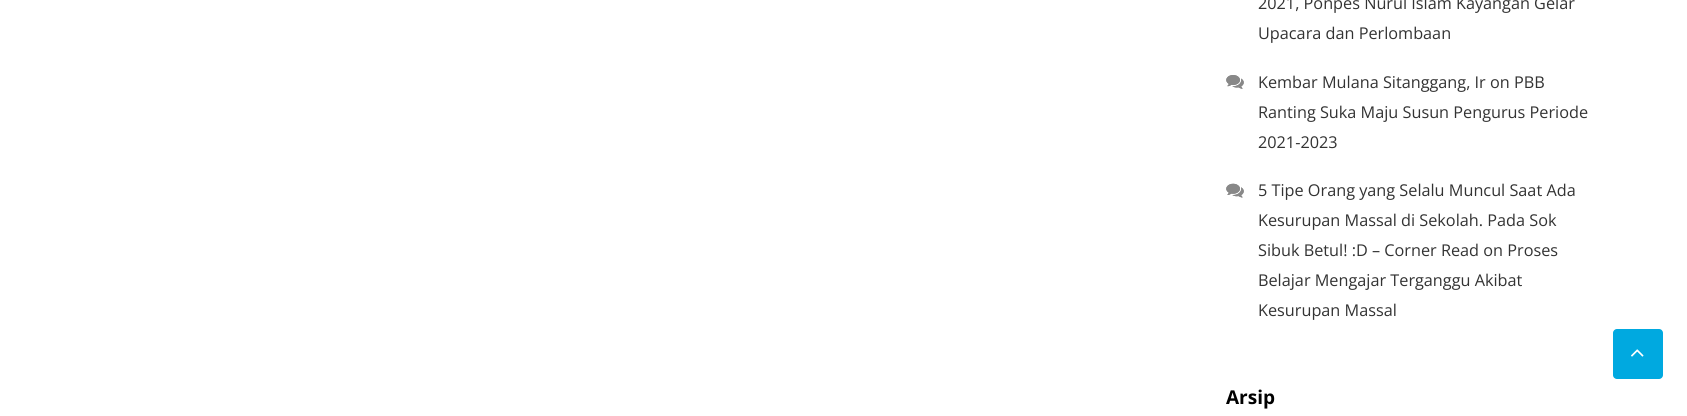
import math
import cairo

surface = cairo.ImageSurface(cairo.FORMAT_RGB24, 1687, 416)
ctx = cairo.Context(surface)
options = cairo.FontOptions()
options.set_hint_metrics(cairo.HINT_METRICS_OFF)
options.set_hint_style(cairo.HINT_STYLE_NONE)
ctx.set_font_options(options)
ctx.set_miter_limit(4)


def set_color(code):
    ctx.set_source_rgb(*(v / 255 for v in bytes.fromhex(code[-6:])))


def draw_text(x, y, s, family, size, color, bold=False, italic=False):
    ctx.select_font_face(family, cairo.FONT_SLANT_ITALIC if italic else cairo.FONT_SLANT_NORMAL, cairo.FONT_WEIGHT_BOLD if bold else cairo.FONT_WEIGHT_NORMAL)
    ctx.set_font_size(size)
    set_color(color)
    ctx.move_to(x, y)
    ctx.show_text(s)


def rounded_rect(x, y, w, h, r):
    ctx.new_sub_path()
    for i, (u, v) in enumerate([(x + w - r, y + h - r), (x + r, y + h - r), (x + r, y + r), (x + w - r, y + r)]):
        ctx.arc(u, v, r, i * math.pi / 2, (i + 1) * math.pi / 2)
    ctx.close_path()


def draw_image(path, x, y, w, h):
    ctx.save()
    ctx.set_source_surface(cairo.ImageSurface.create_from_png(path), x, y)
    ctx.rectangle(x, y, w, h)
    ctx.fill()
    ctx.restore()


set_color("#ffffff")
ctx.paint()
draw_text(1258, 9, "2021, Ponpes Nurul Islam Kayangan Gelar", "Open Sans", 16.25, "#333333")
draw_text(1258, 39, "Upacara dan Perlombaan", "Open Sans", 16.25, "#333333")
draw_image("assets/img1.png", 1226, 75, 18, 14)
draw_text(1258, 88, "Kembar Mulana Sitanggang, Ir on PBB", "Open Sans", 16.25, "#333333")
draw_image("assets/img2.png", 1226, 75, 18, 14)
draw_text(1258, 118, "Ranting Suka Maju Susun Pengurus Periode", "Open Sans", 16.25, "#333333")
draw_text(1258, 148, "2021-2023", "Open Sans", 16.25, "#333333")
draw_image("assets/img3.png", 1226, 183, 18, 15)
draw_text(1258, 196, "5 Tipe Orang yang Selalu Muncul Saat Ada", "Open Sans", 16.25, "#333333")
draw_text(1258, 226, "Kesurupan Massal di Sekolah. Pada Sok", "Open Sans", 16.25, "#333333")
draw_text(1258, 256, "Sibuk Betul! :D – Corner Read on Proses", "Open Sans", 16.25, "#333333")
draw_image("assets/img4.png", 1226, 183, 18, 15)
draw_text(1258, 286, "Belajar Mengajar Terganggu Akibat", "Open Sans", 16.25, "#333333")
draw_text(1258, 316, "Kesurupan Massal", "Open Sans", 16.25, "#333333")
draw_text(1226, 404, "Arsip", "Open Sans", 19, "#000000", bold=True)
set_color("#00a9e0")
rounded_rect(1613, 329, 50, 50, 4)
ctx.fill()
draw_image("assets/img5.png", 1631, 349, 13, 8)
surface.write_to_png("output.png")
